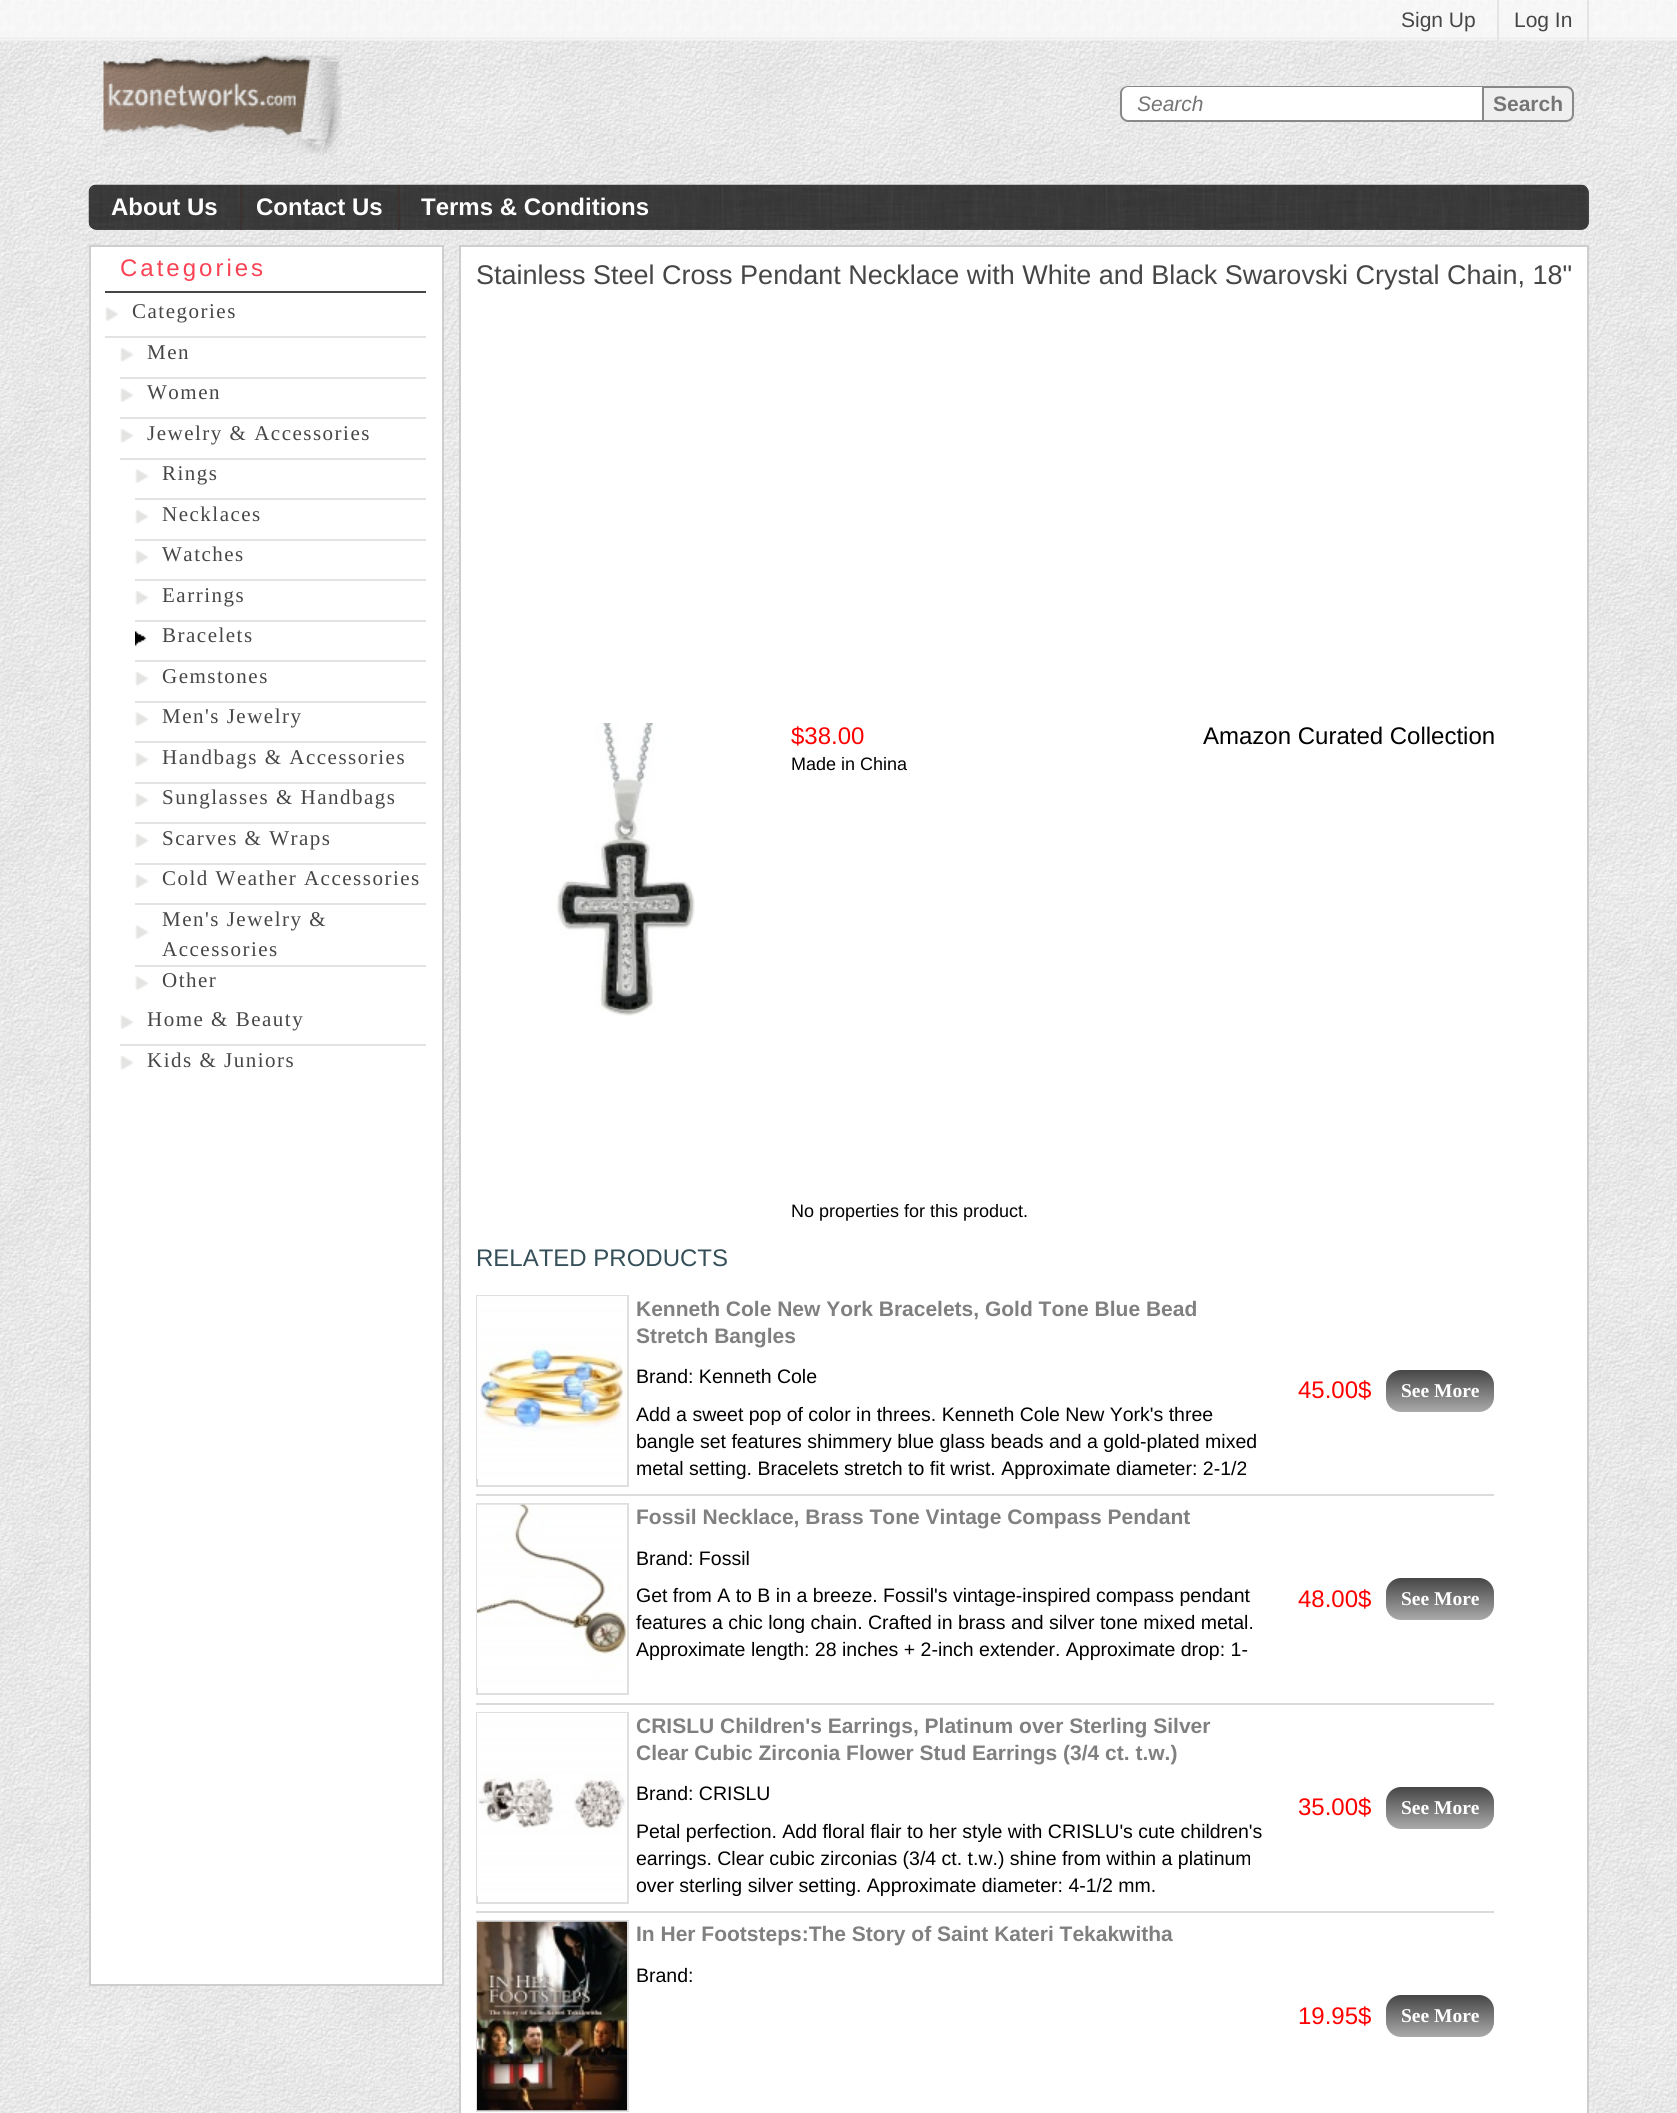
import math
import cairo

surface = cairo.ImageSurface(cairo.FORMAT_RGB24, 1677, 2113)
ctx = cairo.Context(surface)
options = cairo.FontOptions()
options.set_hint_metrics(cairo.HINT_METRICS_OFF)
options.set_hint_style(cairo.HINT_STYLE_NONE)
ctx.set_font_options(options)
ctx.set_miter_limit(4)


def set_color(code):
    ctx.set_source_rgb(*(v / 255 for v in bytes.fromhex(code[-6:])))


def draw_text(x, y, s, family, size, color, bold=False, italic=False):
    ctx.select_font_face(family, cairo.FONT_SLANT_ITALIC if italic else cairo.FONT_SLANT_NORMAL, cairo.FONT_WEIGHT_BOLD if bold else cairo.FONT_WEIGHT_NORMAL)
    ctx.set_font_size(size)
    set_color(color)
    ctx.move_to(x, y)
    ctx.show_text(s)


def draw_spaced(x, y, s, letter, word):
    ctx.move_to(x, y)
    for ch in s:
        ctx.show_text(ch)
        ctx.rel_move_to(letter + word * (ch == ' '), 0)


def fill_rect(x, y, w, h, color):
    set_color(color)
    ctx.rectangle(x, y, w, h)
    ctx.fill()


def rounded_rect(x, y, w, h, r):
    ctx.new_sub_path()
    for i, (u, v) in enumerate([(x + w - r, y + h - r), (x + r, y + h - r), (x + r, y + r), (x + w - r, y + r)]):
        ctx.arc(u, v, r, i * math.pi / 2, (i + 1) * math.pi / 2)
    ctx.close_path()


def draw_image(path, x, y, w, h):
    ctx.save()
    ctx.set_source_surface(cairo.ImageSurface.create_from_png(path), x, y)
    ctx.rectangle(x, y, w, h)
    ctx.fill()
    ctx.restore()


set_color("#ffffff")
ctx.paint()
draw_image("assets/img1.png", 0, 40, 1677, 2073)
draw_image("assets/img2.png", 0, 0, 1677, 41)
draw_text(1401, 27, "Sign Up", "Liberation Sans", 21, "#464646")
fill_rect(1587, 0, 2, 41, "#e4e4e4")
fill_rect(1497, 0, 2, 41, "#e4e4e4")
draw_text(1514, 27, "Log In", "Liberation Sans", 21, "#464646")
draw_image("assets/img3.png", 103, 55, 239, 100)
set_color("#ffffff")
ctx.new_path()
ctx.move_to(1129, 86)
ctx.line_to(1482, 86)
ctx.line_to(1482, 122)
ctx.line_to(1129, 122)
ctx.curve_to(1124.5, 122, 1121, 118.5, 1121, 114)
ctx.line_to(1121, 94)
ctx.curve_to(1121, 89.5, 1124.5, 86, 1129, 86)
ctx.close_path()
ctx.fill()
set_color("#888888")
ctx.set_fill_rule(cairo.FILL_RULE_EVEN_ODD)
ctx.new_path()
ctx.move_to(1128, 86)
ctx.line_to(1482, 86)
ctx.line_to(1482, 122)
ctx.line_to(1128, 122)
ctx.curve_to(1124, 122, 1120, 118, 1120, 114)
ctx.line_to(1120, 93)
ctx.curve_to(1120, 89, 1124, 86, 1128, 86)
ctx.close_path()
ctx.move_to(1128, 87)
ctx.line_to(1482, 87)
ctx.line_to(1482, 120)
ctx.line_to(1128, 120)
ctx.curve_to(1125, 120, 1122, 117, 1122, 114)
ctx.line_to(1122, 93)
ctx.curve_to(1122, 90, 1125, 87, 1128, 87)
ctx.close_path()
ctx.fill()
draw_text(1137, 111, "Search", "Liberation Sans", 21, "#757575", italic=True)
set_color("#efefef")
ctx.new_path()
ctx.move_to(1483, 87)
ctx.line_to(1566, 87)
ctx.curve_to(1570, 87, 1573, 90, 1573, 94)
ctx.line_to(1573, 114)
ctx.curve_to(1573, 118, 1570, 121, 1566, 121)
ctx.line_to(1483, 121)
ctx.close_path()
ctx.fill_preserve()
set_color("#888888")
ctx.stroke()
draw_text(1493, 111, "Search", "Liberation Sans", 21, "#757575", bold=True)
set_color("#474646")
rounded_rect(89, 185, 1500, 45, 8)
ctx.fill()
draw_image("assets/img4.png", 88, 184, 1501, 46)
draw_text(111, 215, "About Us", "Liberation Sans", 24, "#ffffff", bold=True)
fill_rect(398, 185, 2, 45, "#3c3232")
fill_rect(240, 185, 2, 45, "#3c3232")
draw_text(256, 215, "Contact Us", "Liberation Sans", 24, "#ffffff", bold=True)
draw_text(421, 215, "Terms & Conditions", "Liberation Sans", 24, "#ffffff", bold=True)
ctx.rectangle(90, 246, 353, 1739)
ctx.fill_preserve()
set_color("#cecece")
ctx.stroke()
fill_rect(105, 291, 321, 2, "#464646")
ctx.select_font_face("Liberation Sans")
set_color("#f94354")
draw_spaced(120, 276, "Categories", 3, 0)
draw_image("assets/img5.png", 105, 307, 14, 14)
fill_rect(105, 336, 321, 2, "#e3e3e2")
ctx.select_font_face("Liberation Serif")
ctx.set_font_size(21)
set_color("#464646")
draw_spaced(132, 318, "Categories", 1.5, 0)
draw_image("assets/img6.png", 120, 348, 14, 14)
fill_rect(120, 377, 306, 2, "#e3e3e2")
set_color("#464646")
draw_spaced(147, 359, "Men", 1.5, 0)
draw_image("assets/img5.png", 120, 388, 14, 14)
fill_rect(120, 417, 306, 2, "#e3e3e2")
set_color("#464646")
draw_spaced(147, 399, "Women", 1.5, 0)
draw_image("assets/img6.png", 120, 429, 14, 14)
fill_rect(120, 458, 306, 2, "#e3e3e2")
set_color("#464646")
draw_spaced(147, 440, "Jewelry & Accessories", 1.5, 0)
draw_image("assets/img5.png", 135, 469, 14, 14)
fill_rect(135, 498, 291, 2, "#e3e3e2")
set_color("#464646")
draw_spaced(162, 480, "Rings", 1.5, 0)
draw_image("assets/img6.png", 135, 510, 14, 14)
fill_rect(135, 539, 291, 2, "#e3e3e2")
set_color("#464646")
draw_spaced(162, 521, "Necklaces", 1.5, 0)
draw_image("assets/img5.png", 135, 550, 14, 14)
fill_rect(135, 579, 291, 2, "#e3e3e2")
set_color("#464646")
draw_spaced(162, 561, "Watches", 1.5, 0)
draw_image("assets/img6.png", 135, 591, 14, 14)
fill_rect(135, 620, 291, 2, "#e3e3e2")
set_color("#464646")
draw_spaced(162, 602, "Earrings", 1.5, 0)
draw_image("assets/img7.png", 135, 631, 12, 16)
fill_rect(135, 660, 291, 2, "#e3e3e2")
set_color("#464646")
draw_spaced(162, 642, "Bracelets", 1.5, 0)
draw_image("assets/img6.png", 135, 672, 14, 14)
fill_rect(135, 701, 291, 2, "#e3e3e2")
set_color("#464646")
draw_spaced(162, 683, "Gemstones", 1.5, 0)
draw_image("assets/img5.png", 135, 712, 14, 14)
fill_rect(135, 741, 291, 2, "#e3e3e2")
set_color("#464646")
draw_spaced(162, 723, "Men's Jewelry", 1.5, 0)
draw_image("assets/img6.png", 135, 753, 14, 14)
fill_rect(135, 782, 291, 2, "#e3e3e2")
set_color("#464646")
draw_spaced(162, 764, "Handbags & Accessories", 1.5, 0)
draw_image("assets/img5.png", 135, 793, 14, 14)
fill_rect(135, 822, 291, 2, "#e3e3e2")
set_color("#464646")
draw_spaced(162, 804, "Sunglasses & Handbags", 1.5, 0)
draw_image("assets/img6.png", 135, 834, 14, 14)
fill_rect(135, 863, 291, 2, "#e3e3e2")
set_color("#464646")
draw_spaced(162, 845, "Scarves & Wraps", 1.5, 0)
draw_image("assets/img5.png", 135, 874, 14, 14)
fill_rect(135, 903, 291, 2, "#e3e3e2")
set_color("#464646")
draw_spaced(162, 885, "Cold Weather Accessories", 1.5, 0)
draw_image("assets/img5.png", 135, 925, 14, 14)
fill_rect(135, 965, 291, 2, "#e3e3e2")
set_color("#464646")
draw_spaced(162, 926, "Men's Jewelry &", 1.5, 0)
draw_spaced(162, 956, "Accessories", 1.5, 0)
draw_image("assets/img5.png", 135, 976, 14, 14)
draw_spaced(162, 987, "Other", 1.5, 0)
draw_image("assets/img5.png", 120, 1015, 14, 14)
fill_rect(120, 1044, 306, 2, "#e3e3e2")
set_color("#464646")
draw_spaced(147, 1026, "Home & Beauty", 1.5, 0)
draw_image("assets/img6.png", 120, 1056, 14, 14)
draw_spaced(147, 1067, "Kids & Juniors", 1.5, 0)
set_color("#ffffff")
ctx.rectangle(460, 246, 1128, 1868)
ctx.fill_preserve()
set_color("#cecece")
ctx.stroke()
draw_text(476, 284, "Stainless Steel Cross Pendant Necklace with White and Black Swarovski Crystal Chain, 18\"", "Liberation Sans", 27, "#464646")
draw_image("assets/img8.png", 556, 723, 139, 293)
draw_text(791, 744, "$38.00", "Liberation Sans", 24, "#ff0000")
draw_text(1203, 744, "Amazon Curated Collection", "Liberation Sans", 24, "#000000")
draw_text(791, 770, "Made in China", "Liberation Sans", 18, "#000000")
draw_text(791, 1217, "No properties for this product.", "Liberation Sans", 18, "#000000")
draw_text(476, 1266, "RELATED PRODUCTS", "Liberation Sans", 24, "#354f59")
fill_rect(476, 1494, 1018, 2, "#dbdbdb")
ctx.rectangle(477, 1296, 151, 190)
set_color("#dfdfdf")
ctx.stroke()
draw_image("assets/img9.png", 477, 1296, 150, 183)
draw_text(636, 1316, "Kenneth Cole New York Bracelets, Gold Tone Blue Bead", "Liberation Sans", 21, "#808080", bold=True)
draw_text(636, 1343, "Stretch Bangles", "Liberation Sans", 21, "#808080", bold=True)
draw_text(636, 1383, "Brand: Kenneth Cole", "Liberation Sans", 19.5, "#000000")
draw_text(636, 1421, "Add a sweet pop of color in threes. Kenneth Cole New York's three", "Liberation Sans", 19.5, "#000000")
draw_text(636, 1448, "bangle set features shimmery blue glass beads and a gold-plated mixed", "Liberation Sans", 19.5, "#000000")
draw_text(636, 1475, "metal setting. Bracelets stretch to fit wrist. Approximate diameter: 2-1/2", "Liberation Sans", 19.5, "#000000")
draw_text(1298, 1398, "45.00$", "Liberation Sans", 24, "#ff0000")
gradient = cairo.LinearGradient(1440, 1370, 1440, 1412)
gradient.add_color_stop_rgba(0, 0.275, 0.275, 0.275, 1)
gradient.add_color_stop_rgba(1, 0.667, 0.667, 0.667, 1)
ctx.set_source(gradient)
rounded_rect(1386, 1370, 108, 42, 15)
ctx.fill()
draw_text(1401, 1397, "See More", "Liberation Serif", 19.5, "#ffffff", bold=True)
fill_rect(476, 1703, 1018, 2, "#dbdbdb")
ctx.rectangle(477, 1504, 151, 190)
set_color("#dfdfdf")
ctx.stroke()
draw_image("assets/img10.png", 477, 1504, 150, 184)
draw_text(636, 1524, "Fossil Necklace, Brass Tone Vintage Compass Pendant", "Liberation Sans", 21, "#808080", bold=True)
draw_text(636, 1565, "Brand: Fossil", "Liberation Sans", 19.5, "#000000")
draw_text(636, 1602, "Get from A to B in a breeze. Fossil's vintage-inspired compass pendant", "Liberation Sans", 19.5, "#000000")
draw_text(636, 1629, "features a chic long chain. Crafted in brass and silver tone mixed metal.", "Liberation Sans", 19.5, "#000000")
draw_text(636, 1656, "Approximate length: 28 inches + 2-inch extender. Approximate drop: 1-", "Liberation Sans", 19.5, "#000000")
draw_text(1298, 1607, "48.00$", "Liberation Sans", 24, "#ff0000")
gradient = cairo.LinearGradient(1440, 1578, 1440, 1620)
gradient.add_color_stop_rgba(0, 0.275, 0.275, 0.275, 1)
gradient.add_color_stop_rgba(1, 0.667, 0.667, 0.667, 1)
ctx.set_source(gradient)
rounded_rect(1386, 1578, 108, 42, 15)
ctx.fill()
draw_text(1401, 1605, "See More", "Liberation Serif", 19.5, "#ffffff", bold=True)
fill_rect(476, 1911, 1018, 2, "#dbdbdb")
ctx.rectangle(477, 1713, 151, 190)
set_color("#dfdfdf")
ctx.stroke()
draw_image("assets/img11.png", 477, 1713, 150, 183)
draw_text(636, 1733, "CRISLU Children's Earrings, Platinum over Sterling Silver", "Liberation Sans", 21, "#808080", bold=True)
draw_text(636, 1760, "Clear Cubic Zirconia Flower Stud Earrings (3/4 ct. t.w.)", "Liberation Sans", 21, "#808080", bold=True)
draw_text(636, 1800, "Brand: CRISLU", "Liberation Sans", 19.5, "#000000")
draw_text(636, 1838, "Petal perfection. Add floral flair to her style with CRISLU's cute children's", "Liberation Sans", 19.5, "#000000")
draw_text(636, 1865, "earrings. Clear cubic zirconias (3/4 ct. t.w.) shine from within a platinum", "Liberation Sans", 19.5, "#000000")
draw_text(636, 1892, "over sterling silver setting. Approximate diameter: 4-1/2 mm.", "Liberation Sans", 19.5, "#000000")
draw_text(1298, 1815, "35.00$", "Liberation Sans", 24, "#ff0000")
gradient = cairo.LinearGradient(1440, 1787, 1440, 1829)
gradient.add_color_stop_rgba(0, 0.275, 0.275, 0.275, 1)
gradient.add_color_stop_rgba(1, 0.667, 0.667, 0.667, 1)
ctx.set_source(gradient)
rounded_rect(1386, 1787, 108, 42, 15)
ctx.fill()
draw_text(1401, 1814, "See More", "Liberation Serif", 19.5, "#ffffff", bold=True)
ctx.rectangle(477, 1921, 151, 190)
set_color("#dfdfdf")
ctx.stroke()
draw_image("assets/img12.png", 477, 1921, 150, 190)
draw_text(636, 1941, "In Her Footsteps:The Story of Saint Kateri Tekakwitha", "Liberation Sans", 21, "#808080", bold=True)
draw_text(636, 1982, "Brand:", "Liberation Sans", 19.5, "#000000")
draw_text(1298, 2024, "19.95$", "Liberation Sans", 24, "#ff0000")
gradient = cairo.LinearGradient(1440, 1995, 1440, 2037)
gradient.add_color_stop_rgba(0, 0.275, 0.275, 0.275, 1)
gradient.add_color_stop_rgba(1, 0.667, 0.667, 0.667, 1)
ctx.set_source(gradient)
rounded_rect(1386, 1995, 108, 42, 15)
ctx.fill()
draw_text(1401, 2022, "See More", "Liberation Serif", 19.5, "#ffffff", bold=True)
surface.write_to_png("output.png")
